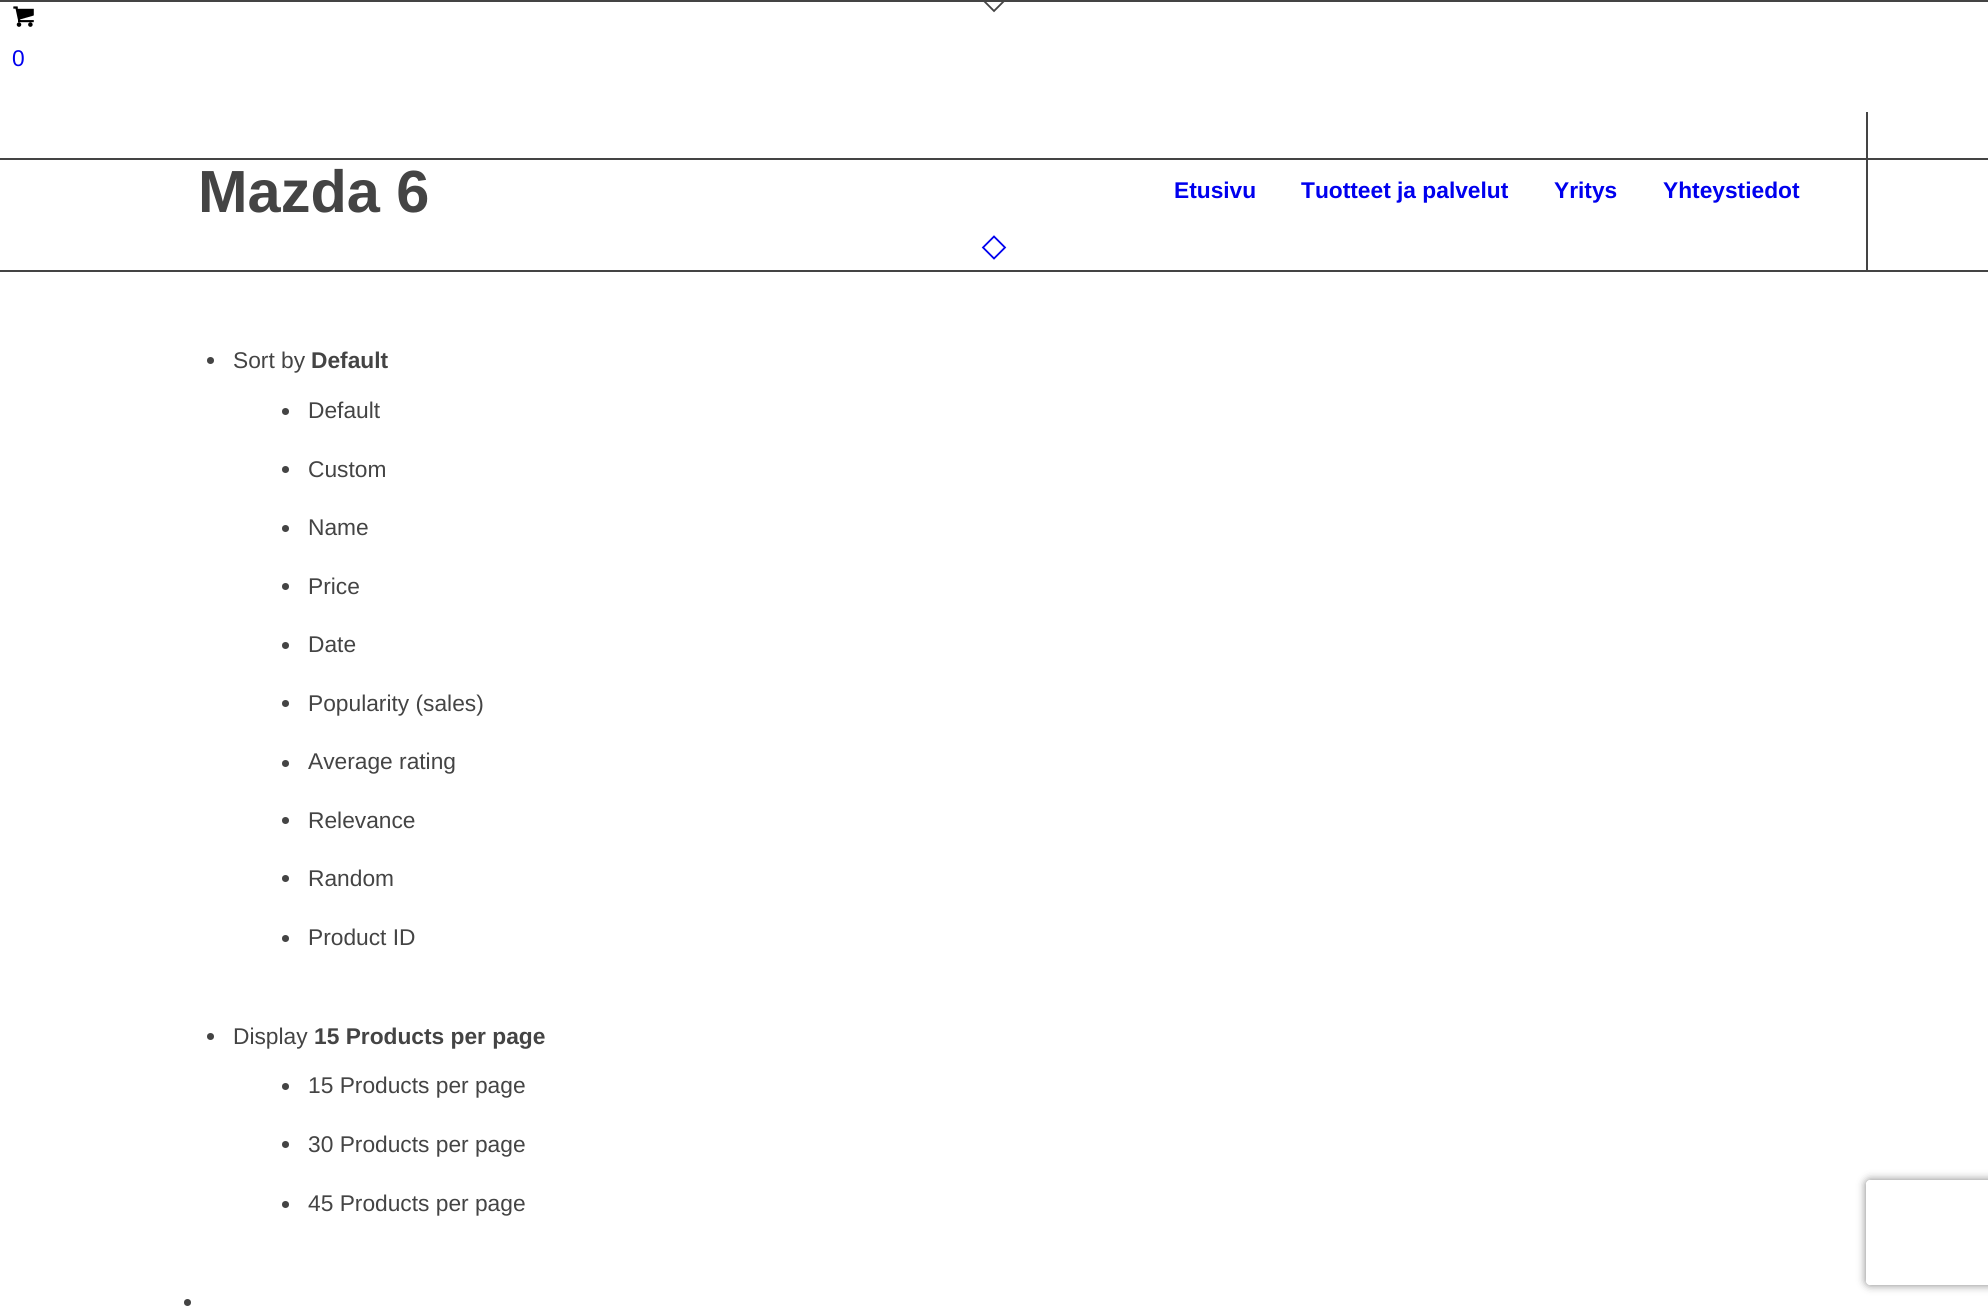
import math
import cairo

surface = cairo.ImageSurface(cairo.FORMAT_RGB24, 1988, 1308)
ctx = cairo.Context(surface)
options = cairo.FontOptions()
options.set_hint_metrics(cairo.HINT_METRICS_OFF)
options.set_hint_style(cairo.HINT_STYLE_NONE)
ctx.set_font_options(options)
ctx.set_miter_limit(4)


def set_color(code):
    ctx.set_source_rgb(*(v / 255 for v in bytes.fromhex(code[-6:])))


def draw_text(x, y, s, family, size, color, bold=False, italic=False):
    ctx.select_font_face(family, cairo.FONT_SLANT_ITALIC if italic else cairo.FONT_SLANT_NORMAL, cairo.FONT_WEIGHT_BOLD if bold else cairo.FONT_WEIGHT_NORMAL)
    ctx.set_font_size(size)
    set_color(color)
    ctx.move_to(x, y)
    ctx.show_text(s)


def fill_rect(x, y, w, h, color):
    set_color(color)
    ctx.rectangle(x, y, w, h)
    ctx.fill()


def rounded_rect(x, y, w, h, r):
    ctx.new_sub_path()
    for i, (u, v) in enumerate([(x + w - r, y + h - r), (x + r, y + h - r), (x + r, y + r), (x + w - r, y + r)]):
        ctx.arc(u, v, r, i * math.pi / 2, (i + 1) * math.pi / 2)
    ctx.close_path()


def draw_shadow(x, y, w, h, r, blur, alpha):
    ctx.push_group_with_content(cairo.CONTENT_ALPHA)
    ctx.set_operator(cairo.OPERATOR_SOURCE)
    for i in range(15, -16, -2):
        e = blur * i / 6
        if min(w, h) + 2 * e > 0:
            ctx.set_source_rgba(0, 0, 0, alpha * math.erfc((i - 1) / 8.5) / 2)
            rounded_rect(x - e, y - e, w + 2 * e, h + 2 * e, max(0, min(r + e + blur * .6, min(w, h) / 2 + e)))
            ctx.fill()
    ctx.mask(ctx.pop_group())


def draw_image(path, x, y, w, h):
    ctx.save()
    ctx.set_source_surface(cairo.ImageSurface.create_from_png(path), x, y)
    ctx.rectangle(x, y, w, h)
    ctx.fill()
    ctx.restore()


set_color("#ffffff")
ctx.paint()
fill_rect(0, 0, 1988, 2, "#444444")
fill_rect(0, 270, 1988, 2, "#444444")
ctx.new_path()
ctx.move_to(994, -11)
ctx.line_to(1005, 0)
ctx.line_to(994, 11)
ctx.line_to(983, 0)
ctx.close_path()
ctx.set_line_width(1.8)
ctx.stroke()
draw_image("assets/img1.png", 13, 6, 21, 21)
draw_text(12, 66, "0", "Liberation Sans", 22.75, "#0000ee")
fill_rect(0, 158, 1988, 2, "#444444")
fill_rect(1866, 112, 2, 158, "#444444")
draw_text(1174, 198, "Etusivu", "Liberation Sans", 22.75, "#0000ee", bold=True)
draw_text(1301, 198, "Tuotteet ja palvelut", "Liberation Sans", 22.75, "#0000ee", bold=True)
draw_text(1554, 198, "Yritys", "Liberation Sans", 22.75, "#0000ee", bold=True)
draw_text(1663, 198, "Yhteystiedot", "Liberation Sans", 22.75, "#0000ee", bold=True)
draw_text(198, 212, "Mazda 6", "Liberation Sans", 59.5, "#444444", bold=True)
ctx.new_path()
ctx.move_to(994, 236.5)
ctx.line_to(1005, 247.5)
ctx.line_to(994, 258.5)
ctx.line_to(983, 247.5)
ctx.close_path()
ctx.move_to(994, 236.5)
ctx.line_to(1005, 247.5)
ctx.line_to(994, 258.5)
ctx.line_to(983, 247.5)
ctx.close_path()
ctx.move_to(994, 236.5)
ctx.line_to(1005, 247.5)
ctx.line_to(994, 258.5)
ctx.line_to(983, 247.5)
ctx.close_path()
set_color("#0000ee")
ctx.stroke()
set_color("#444444")
ctx.arc(187.5, 1302.5, 3.5, 0, 2 * math.pi)
ctx.fill()
ctx.arc(210.5, 360.5, 3.5, 0, 2 * math.pi)
ctx.fill()
draw_text(233, 368, "Sort by", "Liberation Sans", 22.75, "#444444")
draw_text(311, 368, "Default", "Liberation Sans", 22.75, "#444444", bold=True)
ctx.new_path()
ctx.arc(285.5, 411.5, 3.5, 0, 2 * math.pi)
ctx.fill()
draw_text(308, 418, "Default", "Liberation Sans", 22.75, "#444444")
ctx.new_path()
ctx.arc(285.5, 469.5, 3.5, 0, 2 * math.pi)
ctx.fill()
draw_text(308, 477, "Custom", "Liberation Sans", 22.75, "#444444")
ctx.new_path()
ctx.arc(285.5, 528.5, 3.5, 0, 2 * math.pi)
ctx.fill()
draw_text(308, 535, "Name", "Liberation Sans", 22.75, "#444444")
ctx.new_path()
ctx.arc(285.5, 586.5, 3.5, 0, 2 * math.pi)
ctx.fill()
draw_text(308, 594, "Price", "Liberation Sans", 22.75, "#444444")
ctx.new_path()
ctx.arc(285.5, 645.5, 3.5, 0, 2 * math.pi)
ctx.fill()
draw_text(308, 652, "Date", "Liberation Sans", 22.75, "#444444")
ctx.new_path()
ctx.arc(285.5, 703.5, 3.5, 0, 2 * math.pi)
ctx.fill()
draw_text(308, 711, "Popularity (sales)", "Liberation Sans", 22.75, "#444444")
ctx.new_path()
ctx.arc(285.5, 763.5, 3.5, 0, 2 * math.pi)
ctx.fill()
draw_text(308, 769, "Average rating", "Liberation Sans", 22.75, "#444444")
ctx.new_path()
ctx.arc(285.5, 820.5, 3.5, 0, 2 * math.pi)
ctx.fill()
draw_text(308, 828, "Relevance", "Liberation Sans", 22.75, "#444444")
ctx.new_path()
ctx.arc(285.5, 878.5, 3.5, 0, 2 * math.pi)
ctx.fill()
draw_text(308, 886, "Random", "Liberation Sans", 22.75, "#444444")
ctx.new_path()
ctx.arc(285.5, 938.5, 3.5, 0, 2 * math.pi)
ctx.fill()
draw_text(308, 945, "Product ID", "Liberation Sans", 22.75, "#444444")
ctx.new_path()
ctx.arc(210.5, 1036.5, 3.5, 0, 2 * math.pi)
ctx.fill()
draw_text(233, 1044, "Display", "Liberation Sans", 22.75, "#444444")
draw_text(314, 1044, "15 Products per page", "Liberation Sans", 22.75, "#444444", bold=True)
ctx.new_path()
ctx.arc(285.5, 1086.5, 3.5, 0, 2 * math.pi)
ctx.fill()
draw_text(308, 1093, "15 Products per page", "Liberation Sans", 22.75, "#444444")
ctx.new_path()
ctx.arc(285.5, 1144.5, 3.5, 0, 2 * math.pi)
ctx.fill()
draw_text(308, 1152, "30 Products per page", "Liberation Sans", 22.75, "#444444")
ctx.new_path()
ctx.arc(285.5, 1204.5, 3.5, 0, 2 * math.pi)
ctx.fill()
draw_text(308, 1211, "45 Products per page", "Liberation Sans", 22.75, "#444444")
ctx.save()
ctx.set_fill_rule(cairo.FILL_RULE_EVEN_ODD)
ctx.new_path()
ctx.move_to(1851, 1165)
ctx.line_to(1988, 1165)
ctx.line_to(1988, 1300)
ctx.line_to(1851, 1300)
ctx.close_path()
ctx.move_to(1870, 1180)
ctx.line_to(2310, 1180)
ctx.curve_to(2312, 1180, 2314, 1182, 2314, 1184)
ctx.line_to(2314, 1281)
ctx.curve_to(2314, 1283, 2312, 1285, 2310, 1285)
ctx.line_to(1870, 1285)
ctx.curve_to(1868, 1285, 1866, 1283, 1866, 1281)
ctx.line_to(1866, 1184)
ctx.curve_to(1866, 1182, 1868, 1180, 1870, 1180)
ctx.close_path()
ctx.clip()
set_color("#808080")
draw_shadow(1866, 1180, 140, 105, 4, 4.5, 1)
ctx.restore()
surface.write_to_png("output.png")
